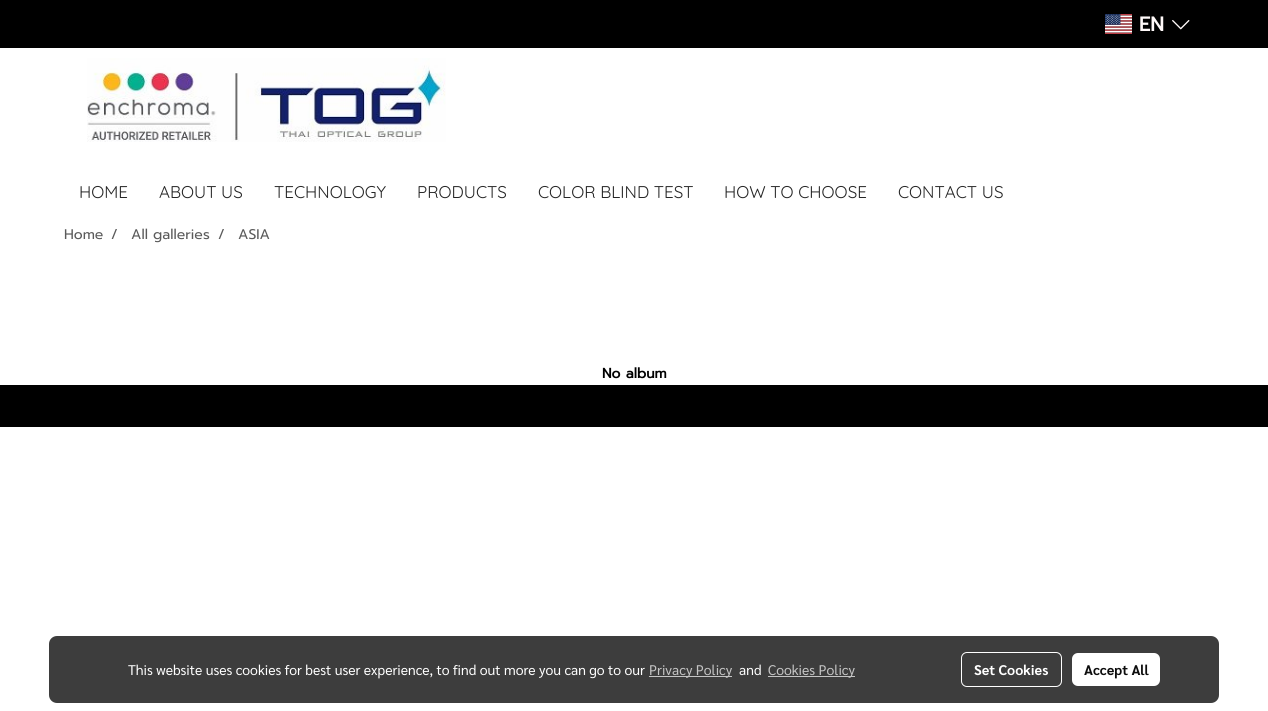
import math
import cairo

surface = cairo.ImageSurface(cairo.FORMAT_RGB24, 1268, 711)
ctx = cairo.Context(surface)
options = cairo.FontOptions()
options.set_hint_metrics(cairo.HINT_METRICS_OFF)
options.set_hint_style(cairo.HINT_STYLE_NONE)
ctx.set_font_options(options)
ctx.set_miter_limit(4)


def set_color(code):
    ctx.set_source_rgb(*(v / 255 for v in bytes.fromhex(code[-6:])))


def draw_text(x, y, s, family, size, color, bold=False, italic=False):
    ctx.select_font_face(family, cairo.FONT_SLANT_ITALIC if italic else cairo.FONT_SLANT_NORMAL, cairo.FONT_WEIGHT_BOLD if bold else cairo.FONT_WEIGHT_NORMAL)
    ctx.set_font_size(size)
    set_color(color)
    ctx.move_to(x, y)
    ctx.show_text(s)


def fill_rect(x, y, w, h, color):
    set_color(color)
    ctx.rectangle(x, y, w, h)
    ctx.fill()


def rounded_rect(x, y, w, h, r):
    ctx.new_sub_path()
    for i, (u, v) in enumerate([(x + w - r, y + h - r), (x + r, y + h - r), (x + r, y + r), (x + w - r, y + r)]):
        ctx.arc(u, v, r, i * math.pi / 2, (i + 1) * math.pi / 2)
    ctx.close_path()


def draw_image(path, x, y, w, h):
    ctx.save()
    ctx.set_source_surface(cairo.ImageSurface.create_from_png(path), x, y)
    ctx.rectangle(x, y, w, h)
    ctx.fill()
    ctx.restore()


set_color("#ffffff")
ctx.paint()
fill_rect(0, 0, 1268, 48, "#000000")
draw_image("assets/img1.png", 1105, 14, 27, 20)
draw_text(1139, 31, "EN", "Prompt", 20, "#fff9f9", bold=True)
draw_image("assets/img2.png", 1172, 20, 18, 10)
draw_image("assets/img3.png", 87, 58, 359, 84)
draw_text(79, 198, "HOME", "Quicksand Light", 17, "#262626")
draw_text(159, 198, "ABOUT US", "Quicksand Light", 17, "#262626")
draw_text(274, 198, "TECHNOLOGY", "Quicksand Light", 17, "#262626")
draw_text(417, 198, "PRODUCTS", "Quicksand Light", 17, "#262626")
draw_text(538, 198, "COLOR BLIND TEST", "Quicksand Light", 17, "#262626")
draw_text(724, 198, "HOW TO CHOOSE", "Quicksand Light", 17, "#262626")
draw_text(898, 198, "CONTACT US", "Quicksand Light", 17, "#262626")
draw_text(64, 239, "Home", "Prompt", 14, "#5b5b5b")
draw_text(111, 239, "/", "Prompt", 14, "#5b5b5b")
draw_text(131, 239, "All galleries", "Prompt", 14, "#5b5b5b")
draw_text(218, 239, "/", "Prompt", 14, "#5b5b5b")
draw_text(238, 239, "ASIA", "Prompt", 14, "#5b5b5b")
draw_text(602, 378, "No album", "Prompt", 14, "#000000", bold=True)
fill_rect(0, 385, 1268, 42, "#000000")
set_color("#3d3d3d")
rounded_rect(49, 636, 1170, 67, 8)
ctx.fill()
draw_text(128, 675, "This website uses cookies for best user experience, to find out more you can go to our", "Sarabun", 14, "#ffffff")
fill_rect(649, 676, 83, 1, "#c5c5c5")
draw_text(649, 675, "Privacy Policy", "Sarabun", 14, "#c5c5c5")
draw_text(739, 675, "and", "Sarabun", 14, "#ffffff")
fill_rect(768, 676, 87, 1, "#c5c5c5")
draw_text(768, 675, "Cookies Policy", "Sarabun", 14, "#c5c5c5")
rounded_rect(961.5, 652.5, 100, 34, 5.5)
set_color("#ffffff")
ctx.set_line_width(1)
ctx.stroke()
draw_text(974, 675, "Set Cookies", "Sarabun", 14, "#ffffff", bold=True)
rounded_rect(1072, 653, 88, 33, 6)
ctx.fill()
draw_text(1084, 675, "Accept All", "Sarabun", 14, "#0d0d0d", bold=True)
surface.write_to_png("output.png")
